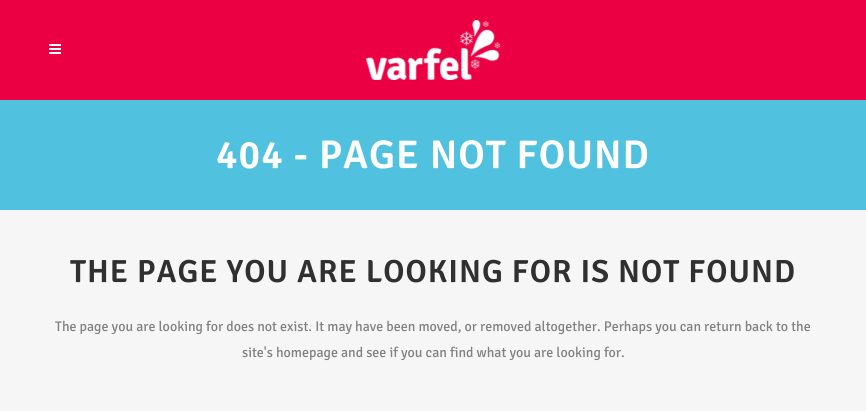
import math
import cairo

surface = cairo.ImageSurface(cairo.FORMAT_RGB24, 866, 411)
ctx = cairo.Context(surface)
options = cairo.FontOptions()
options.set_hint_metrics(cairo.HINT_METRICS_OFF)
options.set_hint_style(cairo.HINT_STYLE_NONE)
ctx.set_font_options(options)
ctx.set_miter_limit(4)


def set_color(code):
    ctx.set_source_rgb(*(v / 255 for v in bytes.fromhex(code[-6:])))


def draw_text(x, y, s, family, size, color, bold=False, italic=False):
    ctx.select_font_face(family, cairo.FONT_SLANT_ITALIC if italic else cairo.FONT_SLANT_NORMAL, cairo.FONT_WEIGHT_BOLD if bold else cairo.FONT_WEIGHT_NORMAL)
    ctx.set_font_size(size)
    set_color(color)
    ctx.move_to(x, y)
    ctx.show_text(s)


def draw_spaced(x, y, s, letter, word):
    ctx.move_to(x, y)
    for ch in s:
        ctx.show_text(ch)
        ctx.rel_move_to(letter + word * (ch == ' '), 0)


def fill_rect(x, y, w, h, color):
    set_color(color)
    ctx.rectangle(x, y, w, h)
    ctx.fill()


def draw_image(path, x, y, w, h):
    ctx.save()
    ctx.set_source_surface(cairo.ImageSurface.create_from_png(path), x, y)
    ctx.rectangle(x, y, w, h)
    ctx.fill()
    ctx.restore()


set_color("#f6f6f6")
ctx.paint()
fill_rect(0, 0, 866, 100, "#ec0044")
draw_image("assets/img1.png", 49, 44, 12, 10)
draw_image("assets/img2.png", 365, 20, 136, 60)
fill_rect(0, 100, 866, 110, "#50c1df")
ctx.select_font_face("Signika SemiBold")
ctx.set_font_size(40)
set_color("#ffffff")
draw_spaced(216, 168, "404 - PAGE NOT FOUND", 1, 0)
ctx.set_font_size(32)
set_color("#303030")
draw_spaced(70, 282, "THE PAGE YOU ARE LOOKING FOR IS NOT FOUND", 1, 0)
draw_text(55, 331, "The page you are looking for does not exist. It may have been moved, or removed altogether. Perhaps you can return back to the", "Signika", 14, "#818181")
draw_text(242, 357, "site's homepage and see if you can find what you are looking for.", "Signika", 14, "#818181")
surface.write_to_png("output.png")
